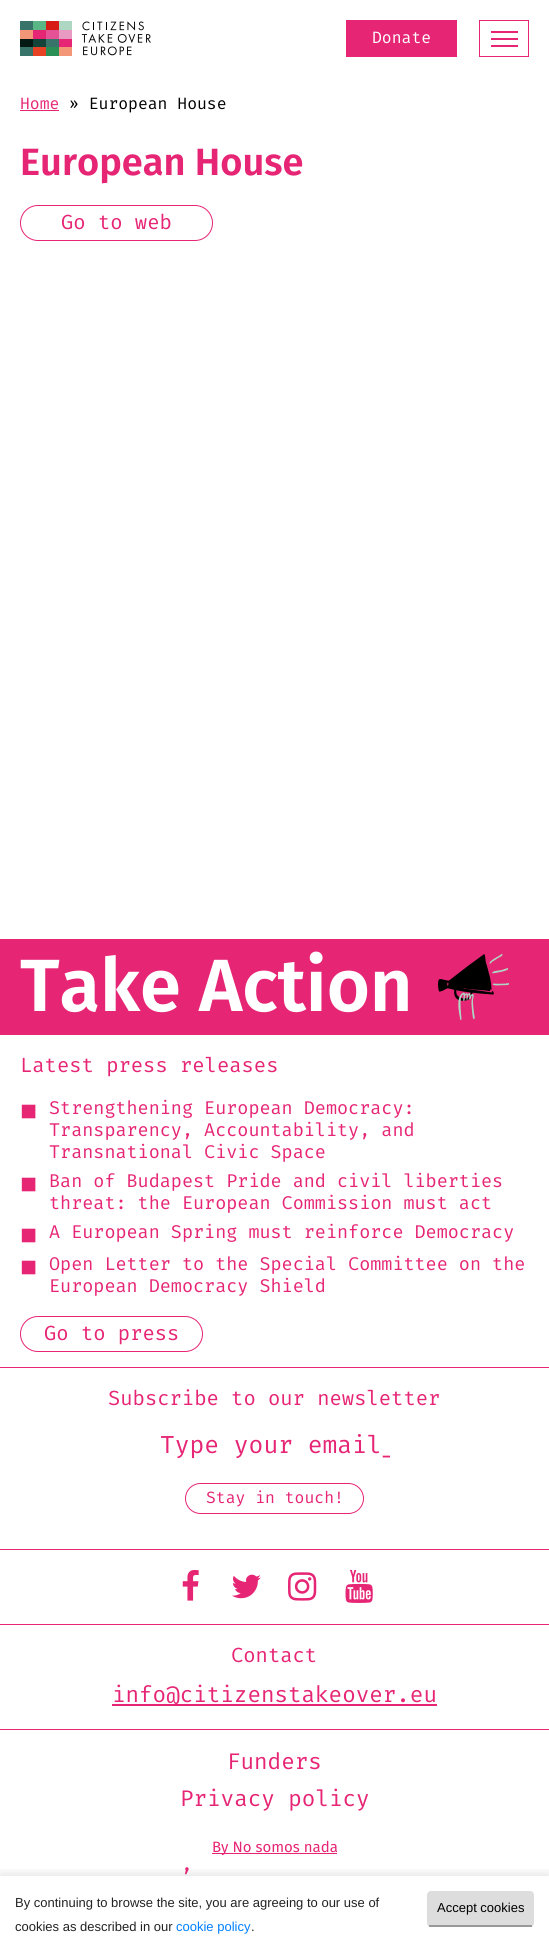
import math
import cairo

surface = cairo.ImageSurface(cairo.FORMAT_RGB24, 549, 1954)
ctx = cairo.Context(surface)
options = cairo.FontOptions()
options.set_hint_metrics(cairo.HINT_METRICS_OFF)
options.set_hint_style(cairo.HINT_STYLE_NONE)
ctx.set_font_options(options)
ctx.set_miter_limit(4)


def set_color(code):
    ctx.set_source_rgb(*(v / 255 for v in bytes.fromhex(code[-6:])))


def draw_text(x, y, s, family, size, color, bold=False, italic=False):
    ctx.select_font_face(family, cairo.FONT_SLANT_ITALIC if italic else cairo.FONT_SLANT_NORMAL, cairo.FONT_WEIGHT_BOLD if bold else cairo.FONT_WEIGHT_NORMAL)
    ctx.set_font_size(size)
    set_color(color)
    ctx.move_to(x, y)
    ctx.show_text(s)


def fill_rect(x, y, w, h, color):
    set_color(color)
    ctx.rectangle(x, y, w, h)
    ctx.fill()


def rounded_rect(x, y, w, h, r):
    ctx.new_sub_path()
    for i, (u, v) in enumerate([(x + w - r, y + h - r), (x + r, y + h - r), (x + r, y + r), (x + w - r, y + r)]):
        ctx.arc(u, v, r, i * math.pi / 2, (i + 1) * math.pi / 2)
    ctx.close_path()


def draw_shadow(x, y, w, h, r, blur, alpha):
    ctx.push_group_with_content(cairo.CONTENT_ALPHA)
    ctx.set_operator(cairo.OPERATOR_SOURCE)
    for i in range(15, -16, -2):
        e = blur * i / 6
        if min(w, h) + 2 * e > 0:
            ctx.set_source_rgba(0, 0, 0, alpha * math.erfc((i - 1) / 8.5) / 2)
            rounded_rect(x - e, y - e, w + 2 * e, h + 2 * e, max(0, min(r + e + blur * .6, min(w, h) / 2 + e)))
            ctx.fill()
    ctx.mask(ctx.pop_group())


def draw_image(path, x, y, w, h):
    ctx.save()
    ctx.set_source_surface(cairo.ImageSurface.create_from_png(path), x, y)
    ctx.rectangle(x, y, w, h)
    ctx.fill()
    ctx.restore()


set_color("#ffffff")
ctx.paint()
draw_image("assets/img1.png", 20, 21, 131, 35)
fill_rect(346, 20, 111, 37, "#e62575")
draw_text(372, 43, "Donate", "Fira Code", 16, "#ffffff")
ctx.rectangle(479.5, 20.5, 49, 36)
set_color("#e62575")
ctx.set_line_width(1)
ctx.stroke()
fill_rect(491, 31, 27, 2, "#e62575")
fill_rect(491, 38, 27, 2, "#e62575")
fill_rect(491, 45, 27, 2, "#e62575")
draw_text(20, 109, "Home", "Fira Code", 16, "#e62575")
fill_rect(20, 110, 39, 1, "#e62575")
draw_text(69, 109, "» European House", "Fira Code", 16, "#000000")
draw_text(20, 175, "European House", "Fira Sans SemiBold", 38, "#e62575")
rounded_rect(20.5, 205.5, 192, 35, 17.5)
ctx.stroke()
draw_text(61, 229, "Go to web", "Fira Code", 20, "#e62575")
fill_rect(0, 939, 549, 96, "#e62575")
draw_text(20, 1011, "Take Action", "Fira Sans SemiBold", 74, "#ffffff")
draw_image("assets/img2.png", 438, 954, 71, 66)
draw_text(20, 1072, "Latest press releases", "Fira Code", 20, "#e62575")
rounded_rect(20.5, 1316.5, 182, 35, 17.5)
ctx.stroke()
draw_text(44, 1340, "Go to press", "Fira Code", 20, "#e62575")
draw_text(20, 1117, "◼", "DejaVu Sans", 20, "#e62575", bold=True)
draw_text(49, 1114, "Strengthening European Democracy:", "Fira Code", 18, "#e62575")
draw_text(49, 1136, "Transparency, Accountability, and", "Fira Code", 18, "#e62575")
draw_text(49, 1158, "Transnational Civic Space", "Fira Code", 18, "#e62575")
draw_text(20, 1190, "◼", "DejaVu Sans", 20, "#e62575", bold=True)
draw_text(49, 1187, "Ban of Budapest Pride and civil liberties", "Fira Code", 18, "#e62575")
draw_text(49, 1209, "threat: the European Commission must act", "Fira Code", 18, "#e62575")
draw_text(20, 1241, "◼", "DejaVu Sans", 20, "#e62575", bold=True)
draw_text(49, 1238, "A European Spring must reinforce Democracy", "Fira Code", 18, "#e62575")
draw_text(20, 1273, "◼", "DejaVu Sans", 20, "#e62575", bold=True)
draw_text(49, 1270, "Open Letter to the Special Committee on the", "Fira Code", 18, "#e62575")
draw_text(49, 1292, "European Democracy Shield", "Fira Code", 18, "#e62575")
fill_rect(0, 1367, 549, 1, "#e62575")
draw_text(108, 1405, "Subscribe to our newsletter", "Fira Code", 20, "#e62575")
ctx.save()
ctx.rectangle(160, 1431, 230, 29)
ctx.clip()
draw_text(160, 1453, "Type your email_", "Fira Code", 24, "#e62575")
ctx.restore()
rounded_rect(185.5, 1483.5, 178, 30, 15)
ctx.stroke()
draw_text(206, 1503, "Stay in touch!", "Fira Code", 16, "#e62575")
fill_rect(0, 1549, 549, 1, "#e62575")
draw_image("assets/img3.png", 182, 1569, 17, 32)
draw_image("assets/img4.png", 232, 1574, 29, 25)
draw_image("assets/img5.png", 288, 1572, 29, 29)
draw_image("assets/img6.png", 345, 1569, 28, 34)
fill_rect(0, 1624, 549, 1, "#e62575")
draw_text(231, 1662, "Contact", "Fira Code", 20, "#e62575")
fill_rect(112, 1704, 325, 2, "#e62575")
draw_text(112, 1702, "info@citizenstakeover.eu", "Fira Code", 22, "#e62575")
fill_rect(0, 1729, 549, 1, "#e62575")
draw_text(227, 1769, "Funders", "Fira Code", 22, "#e62575")
draw_text(180, 1806, "Privacy policy", "Fira Code", 22, "#e62575")
fill_rect(212, 1853, 125, 1, "#e62575")
draw_text(212, 1852, "By No somos nada", "Fira Sans", 15, "#e62575")
draw_text(180, 1885, "’", "Fira Code", 22, "#e62575")
ctx.save()
ctx.rectangle(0, 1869, 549, 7)
ctx.clip()
set_color("#000000")
draw_shadow(0, 1873, 549, 78, 0, 5, 0.1)
ctx.restore()
draw_text(15, 1907, "By continuing to browse the site, you are agreeing to our use of", "Liberation Sans", 13, "#222222")
set_color("#dddddd")
rounded_rect(427, 1891, 107, 36, 4)
ctx.fill()
fill_rect(429, 1925, 103, 2, "#999999")
draw_text(437, 1912, "Accept cookies", "Liberation Sans", 13, "#000000")
draw_text(15, 1931, "cookies as described in our", "Liberation Sans", 13, "#222222")
draw_text(176, 1931, "cookie policy", "Liberation Sans", 13, "#007fff")
draw_text(251, 1931, ".", "Liberation Sans", 13, "#222222")
surface.write_to_png("output.png")
